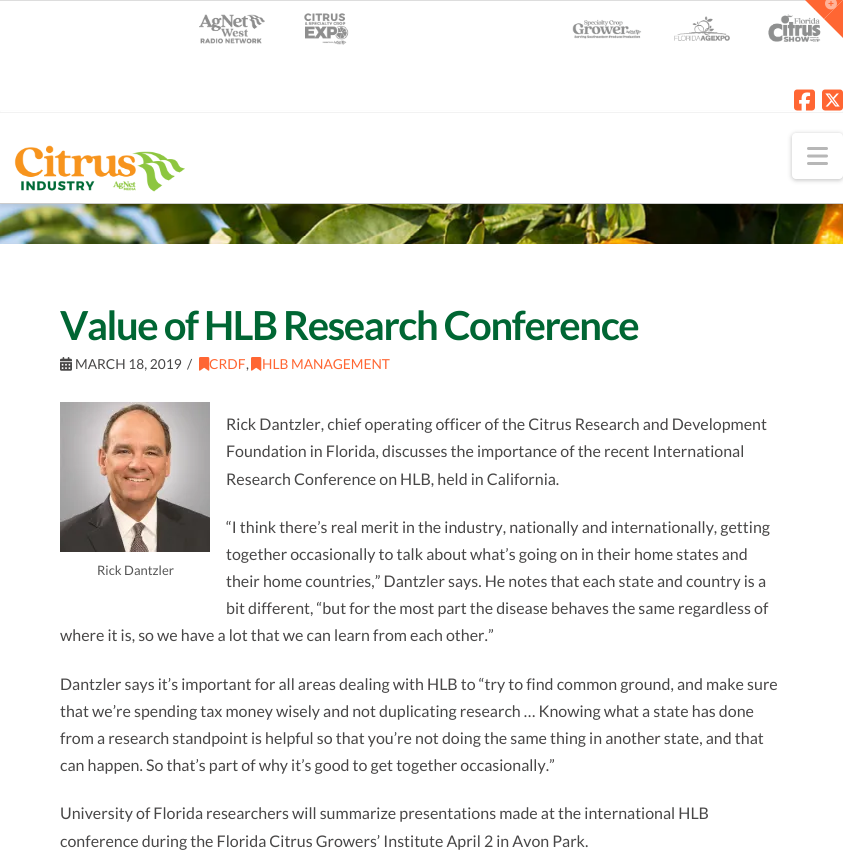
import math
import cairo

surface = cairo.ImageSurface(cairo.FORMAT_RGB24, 843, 855)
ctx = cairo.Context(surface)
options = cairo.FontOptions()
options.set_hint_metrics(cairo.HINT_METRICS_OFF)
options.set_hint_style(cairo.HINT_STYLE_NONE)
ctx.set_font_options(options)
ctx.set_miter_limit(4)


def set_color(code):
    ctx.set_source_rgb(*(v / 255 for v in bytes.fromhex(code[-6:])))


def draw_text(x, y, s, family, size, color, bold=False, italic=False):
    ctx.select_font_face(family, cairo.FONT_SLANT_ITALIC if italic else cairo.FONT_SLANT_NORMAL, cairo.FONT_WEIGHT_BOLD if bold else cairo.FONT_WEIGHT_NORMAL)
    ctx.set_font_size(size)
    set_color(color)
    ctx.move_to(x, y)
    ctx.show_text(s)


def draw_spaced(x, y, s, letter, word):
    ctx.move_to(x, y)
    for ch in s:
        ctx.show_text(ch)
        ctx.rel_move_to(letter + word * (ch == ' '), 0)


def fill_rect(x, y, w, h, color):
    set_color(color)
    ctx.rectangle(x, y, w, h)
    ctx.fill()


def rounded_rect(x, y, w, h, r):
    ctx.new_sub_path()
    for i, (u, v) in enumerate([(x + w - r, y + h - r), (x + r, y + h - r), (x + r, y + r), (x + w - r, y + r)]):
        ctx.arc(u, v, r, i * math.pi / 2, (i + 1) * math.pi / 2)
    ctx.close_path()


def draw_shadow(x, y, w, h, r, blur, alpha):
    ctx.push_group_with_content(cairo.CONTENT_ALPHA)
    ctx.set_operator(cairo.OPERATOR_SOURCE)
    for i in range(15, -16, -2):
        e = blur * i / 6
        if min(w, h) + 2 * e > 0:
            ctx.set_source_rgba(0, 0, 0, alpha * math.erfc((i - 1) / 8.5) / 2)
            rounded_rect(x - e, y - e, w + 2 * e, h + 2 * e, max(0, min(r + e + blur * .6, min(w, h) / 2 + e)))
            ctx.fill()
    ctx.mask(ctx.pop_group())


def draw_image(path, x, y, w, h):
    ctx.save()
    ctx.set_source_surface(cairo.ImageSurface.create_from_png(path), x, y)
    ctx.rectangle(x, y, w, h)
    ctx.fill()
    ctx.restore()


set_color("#ffffff")
ctx.paint()
draw_image("assets/img1.png", 0, 204, 843, 40)
fill_rect(0, 0, 843, 1, "#dddddd")
draw_image("assets/img3.png", 768, 14, 53, 28)
set_color("#ff6633")
ctx.new_path()
ctx.move_to(805, 0)
ctx.line_to(843, 0)
ctx.line_to(824, 19)
ctx.close_path()
ctx.fill()
ctx.new_path()
ctx.move_to(843, 0)
ctx.line_to(843, 38)
ctx.line_to(824, 19)
ctx.close_path()
ctx.fill()
draw_image("assets/img2.png", 825, 0, 12, 10)
set_color("#000000")
draw_shadow(0, 115, 843, 91, 0, 3, 0.13)
fill_rect(1, 111, 841, 1, "#ffffff")
fill_rect(0, 112, 843, 1, "#f2f2f2")
draw_image("assets/img4.png", 199, 14, 66, 30)
draw_image("assets/img5.png", 304, 13, 45, 32)
draw_image("assets/img6.png", 572, 19, 70, 20)
draw_image("assets/img7.png", 674, 16, 56, 25)
draw_image("assets/img8.png", 794, 89, 21, 22)
draw_image("assets/img9.png", 822, 89, 21, 22)
fill_rect(0, 113, 843, 90, "#ffffff")
fill_rect(0, 203, 843, 1, "#cccccc")
draw_image("assets/img10.png", 14, 145, 171, 47)
set_color("#000000")
draw_shadow(792, 134, 51, 46, 4, 2.5, 0.25)
set_color("#ffffff")
rounded_rect(792, 133, 51, 46, 4)
ctx.fill()
draw_image("assets/img11.png", 807, 147, 21, 18)
set_color("#000000")
draw_shadow(0, 246, 843, 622, 4, 3, 0.13)
fill_rect(0, 244, 843, 611, "#ffffff")
ctx.select_font_face("Lato", cairo.FONT_SLANT_NORMAL, cairo.FONT_WEIGHT_BOLD)
ctx.set_font_size(40)
set_color("#006633")
draw_spaced(60, 340, "Value of HLB Research Conference", -1.4, 0)
draw_image("assets/img12.png", 60, 357, 12, 14)
draw_text(75, 369, "MARCH 18, 2019", "Lato", 13.75, "#484747")
draw_text(187, 369, "/", "Lato", 13.75, "#484747")
draw_image("assets/img13.png", 199, 357, 11, 14)
draw_text(209, 369, "CRDF", "Lato", 13.75, "#ff6633")
draw_text(246, 369, ",", "Lato", 13.75, "#484747")
draw_image("assets/img13.png", 251, 357, 11, 14)
draw_text(262, 369, "HLB MANAGEMENT", "Lato", 13.75, "#ff6633")
draw_text(226, 430, "Rick Dantzler, chief operating officer of the Citrus Research and Development", "Lato", 16, "#484747")
draw_text(226, 457, "Foundation in Florida, discusses the importance of the recent International", "Lato", 16, "#484747")
draw_text(226, 485, "Research Conference on HLB, held in California.", "Lato", 16, "#484747")
draw_text(226, 533, "“I think there’s real merit in the industry, nationally and internationally, getting", "Lato", 16, "#484747")
draw_text(226, 560, "together occasionally to talk about what’s going on in their home states and", "Lato", 16, "#484747")
draw_text(226, 587, "their home countries,” Dantzler says. He notes that each state and country is a", "Lato", 16, "#484747")
draw_text(226, 614, "bit different, “but for the most part the disease behaves the same regardless of", "Lato", 16, "#484747")
draw_text(60, 641, "where it is, so we have a lot that we can learn from each other.”", "Lato", 16, "#484747")
draw_image("assets/img14.png", 60, 402, 150, 150)
draw_text(97, 575, "Rick Dantzler", "Lato", 13, "#555555")
draw_text(60, 690, "Dantzler says it’s important for all areas dealing with HLB to “try to find common ground, and make sure", "Lato", 16, "#484747")
draw_text(60, 717, "that we’re spending tax money wisely and not duplicating research … Knowing what a state has done", "Lato", 16, "#484747")
draw_text(60, 744, "from a research standpoint is helpful so that you’re not doing the same thing in another state, and that", "Lato", 16, "#484747")
draw_text(60, 771, "can happen. So that’s part of why it’s good to get together occasionally.”", "Lato", 16, "#484747")
draw_text(60, 819, "University of Florida researchers will summarize presentations made at the international HLB", "Lato", 16, "#484747")
draw_text(60, 847, "conference during the Florida Citrus Growers’ Institute April 2 in Avon Park.", "Lato", 16, "#484747")
surface.write_to_png("output.png")
